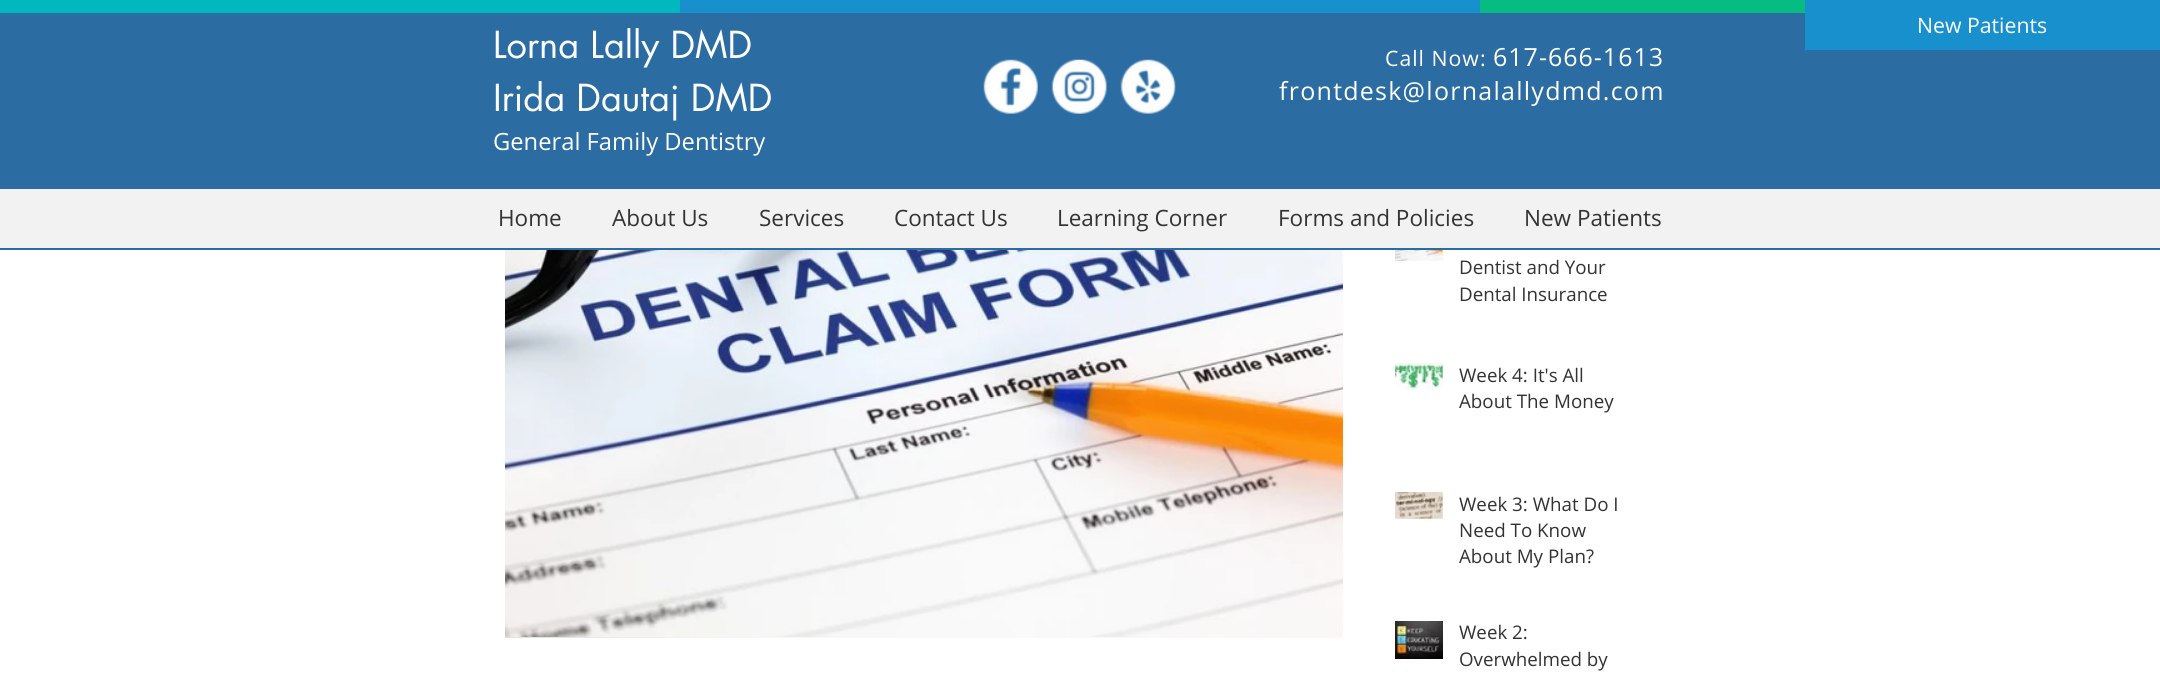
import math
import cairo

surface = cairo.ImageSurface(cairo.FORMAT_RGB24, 2160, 680)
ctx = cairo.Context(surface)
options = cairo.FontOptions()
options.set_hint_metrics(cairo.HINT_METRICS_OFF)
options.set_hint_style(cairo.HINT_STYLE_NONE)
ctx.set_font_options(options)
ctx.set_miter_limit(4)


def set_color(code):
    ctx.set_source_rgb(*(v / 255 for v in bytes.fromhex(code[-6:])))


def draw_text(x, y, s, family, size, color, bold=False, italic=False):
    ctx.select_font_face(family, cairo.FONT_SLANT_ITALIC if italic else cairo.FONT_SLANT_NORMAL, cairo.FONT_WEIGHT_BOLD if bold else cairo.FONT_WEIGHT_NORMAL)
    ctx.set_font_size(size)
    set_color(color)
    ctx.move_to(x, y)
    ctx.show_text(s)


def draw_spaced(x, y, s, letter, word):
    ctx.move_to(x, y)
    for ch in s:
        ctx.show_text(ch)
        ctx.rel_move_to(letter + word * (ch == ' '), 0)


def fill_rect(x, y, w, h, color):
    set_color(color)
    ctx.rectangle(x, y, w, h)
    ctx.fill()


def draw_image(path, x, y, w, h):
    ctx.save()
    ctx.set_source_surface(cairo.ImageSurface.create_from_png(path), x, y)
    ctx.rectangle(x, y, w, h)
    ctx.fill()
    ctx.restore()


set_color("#ffffff")
ctx.paint()
fill_rect(0, 13, 2160, 237, "#2b6ca3")
fill_rect(1805, 0, 355, 50, "#1990ce")
draw_text(1917, 33, "New Patients", "Open Sans", 21.25, "#ffffff")
fill_rect(0, 0, 680, 13, "#02b8bf")
fill_rect(680, 0, 800, 13, "#1990ce")
fill_rect(1480, 0, 325, 13, "#07bc83")
draw_text(493, 58, "Lorna Lally DMD", "futura", 36.25, "#ffffff")
draw_text(493, 111, "Irida Dautaj DMD", "futura", 36.25, "#ffffff")
draw_text(493, 150, "General Family Dentistry", "Open Sans", 23.75, "#ffffff")
draw_image("assets/img1.png", 983, 59, 55, 55)
draw_image("assets/img2.png", 1051, 59, 56, 55)
draw_image("assets/img3.png", 1120, 59, 56, 55)
ctx.set_font_size(21.25)
draw_spaced(1385, 66, "Call Now:", 1, 0)
ctx.set_font_size(25)
draw_spaced(1493, 66, "617-666-1613", 1, 0)
draw_spaced(1279, 100, "frontdesk@lornalallydmd.com", 1.25, 0)
fill_rect(0, 189, 2160, 59, "#f2f2f2")
draw_text(498, 226, "Home", "Open Sans", 22.5, "#333333")
draw_text(612, 226, "About Us", "Open Sans", 22.5, "#333333")
draw_text(759, 226, "Services", "Open Sans", 22.5, "#333333")
draw_text(894, 226, "Contact Us", "Open Sans", 22.5, "#333333")
draw_text(1057, 226, "Learning Corner", "Open Sans", 22.5, "#333333")
draw_text(1278, 226, "Forms and Policies", "Open Sans", 22.5, "#333333")
draw_text(1524, 226, "New Patients", "Open Sans", 22.5, "#333333")
draw_image("assets/img4.png", 505, 250, 838, 387)
draw_image("assets/img5.png", 505, 637, 838, 1)
draw_image("assets/img7.png", 1442, 250, 1, 11)
draw_image("assets/img6.png", 1395, 250, 48, 11)
draw_text(1459, 274, "Dentist and Your", "Open Sans", 18.75, "#333333")
draw_text(1459, 301, "Dental Insurance", "Open Sans", 18.75, "#333333")
draw_image("assets/img8.png", 1395, 363, 48, 27)
draw_image("assets/img9.png", 1395, 363, 48, 27)
draw_text(1459, 382, "Week 4: It's All", "Open Sans", 18.75, "#333333")
draw_text(1459, 408, "About The Money", "Open Sans", 18.75, "#333333")
draw_image("assets/img10.png", 1395, 492, 48, 27)
draw_image("assets/img11.png", 1395, 492, 48, 27)
draw_text(1459, 511, "Week 3: What Do I", "Open Sans", 18.75, "#333333")
draw_text(1459, 537, "Need To Know", "Open Sans", 18.75, "#333333")
draw_text(1459, 563, "About My Plan?", "Open Sans", 18.75, "#333333")
draw_image("assets/img12.png", 1395, 621, 48, 38)
draw_text(1459, 639, "Week 2:", "Open Sans", 18.75, "#333333")
draw_text(1459, 666, "Overwhelmed by", "Open Sans", 18.75, "#333333")
surface.write_to_png("output.png")
